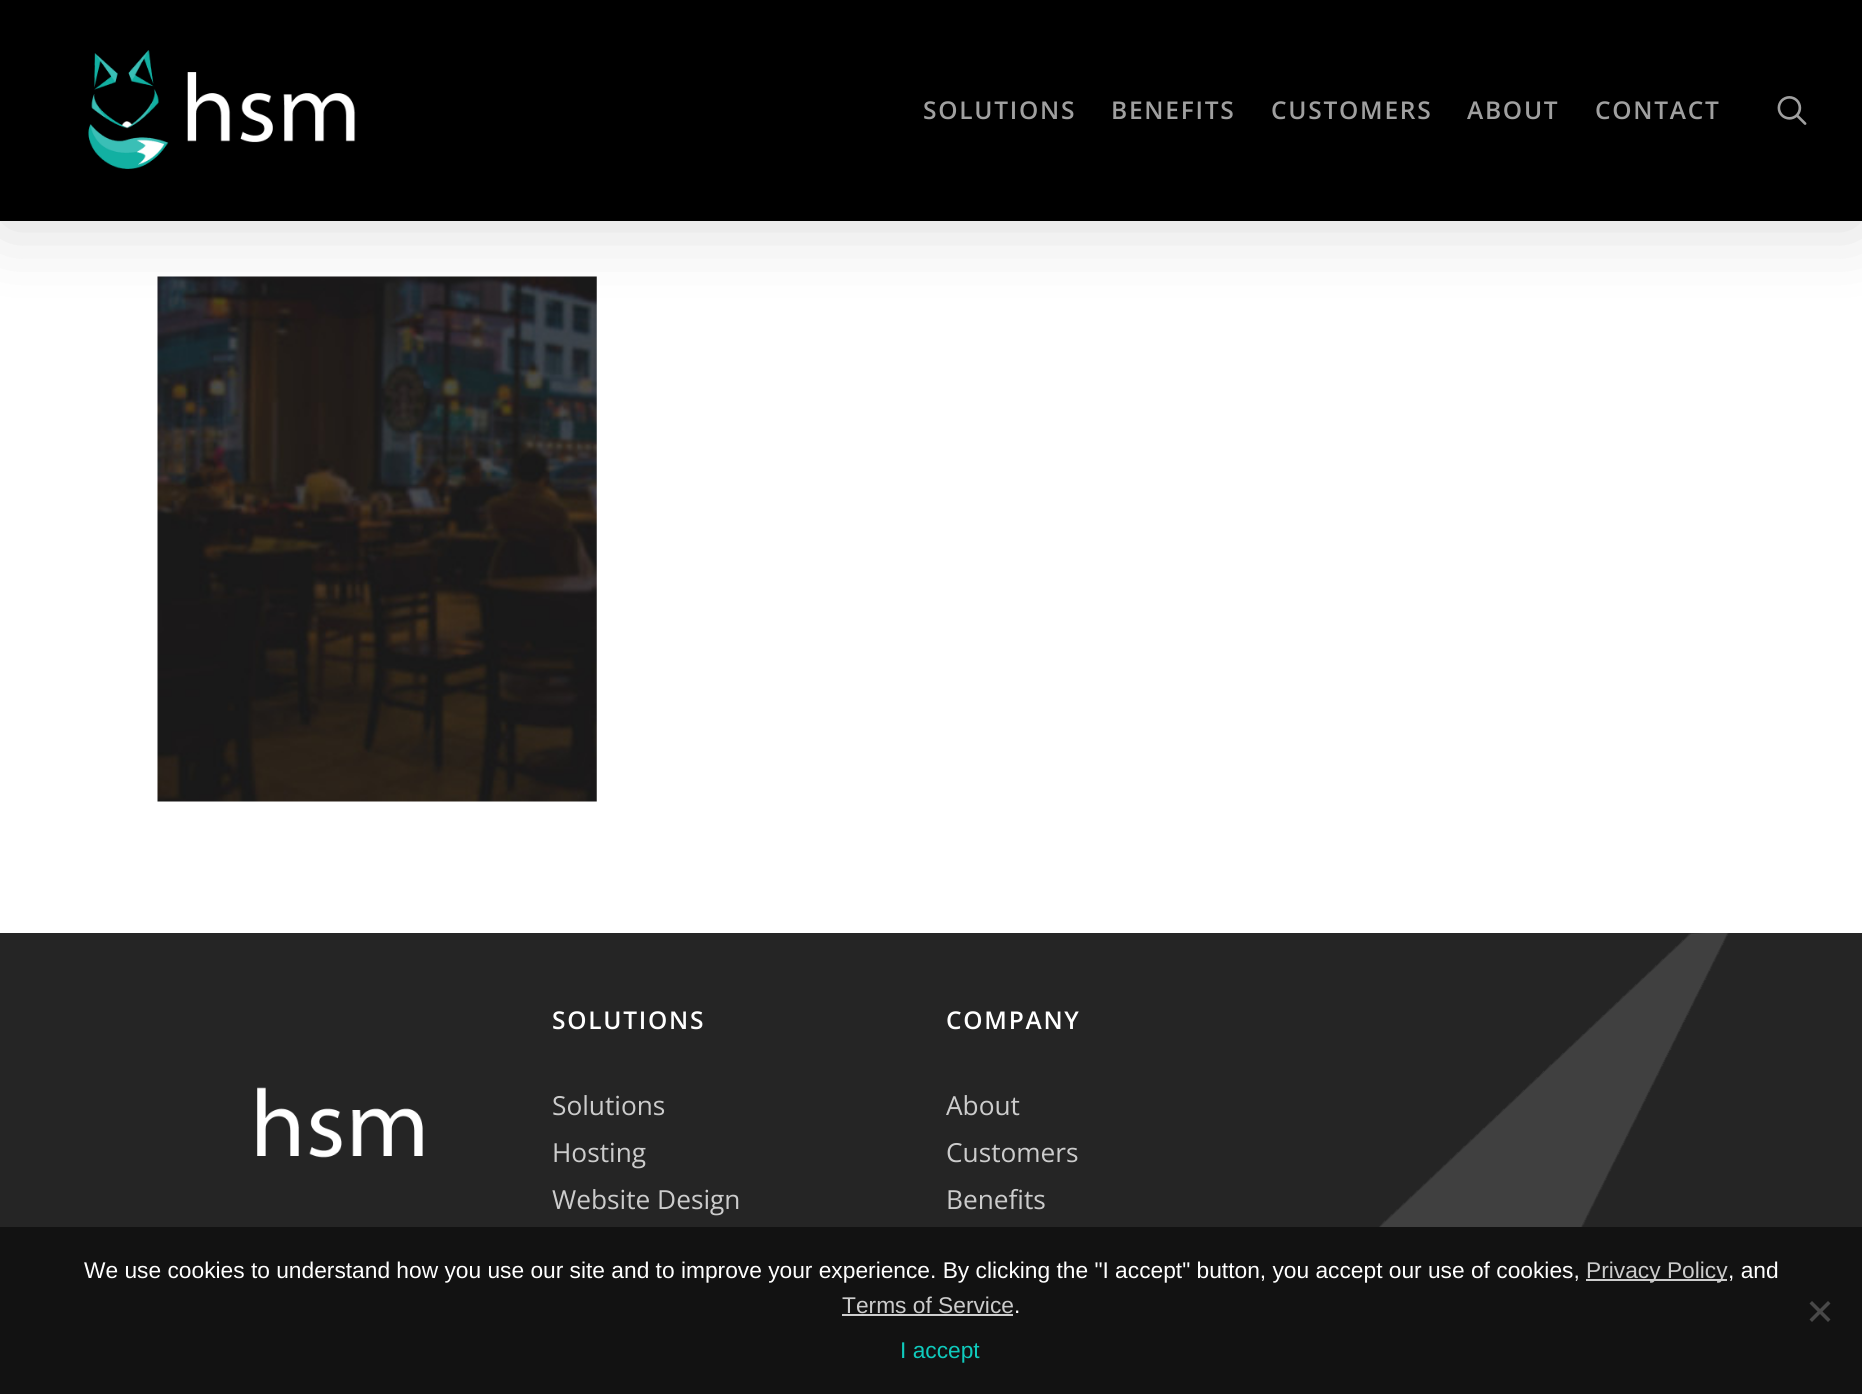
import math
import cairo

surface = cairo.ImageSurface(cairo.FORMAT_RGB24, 1862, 1394)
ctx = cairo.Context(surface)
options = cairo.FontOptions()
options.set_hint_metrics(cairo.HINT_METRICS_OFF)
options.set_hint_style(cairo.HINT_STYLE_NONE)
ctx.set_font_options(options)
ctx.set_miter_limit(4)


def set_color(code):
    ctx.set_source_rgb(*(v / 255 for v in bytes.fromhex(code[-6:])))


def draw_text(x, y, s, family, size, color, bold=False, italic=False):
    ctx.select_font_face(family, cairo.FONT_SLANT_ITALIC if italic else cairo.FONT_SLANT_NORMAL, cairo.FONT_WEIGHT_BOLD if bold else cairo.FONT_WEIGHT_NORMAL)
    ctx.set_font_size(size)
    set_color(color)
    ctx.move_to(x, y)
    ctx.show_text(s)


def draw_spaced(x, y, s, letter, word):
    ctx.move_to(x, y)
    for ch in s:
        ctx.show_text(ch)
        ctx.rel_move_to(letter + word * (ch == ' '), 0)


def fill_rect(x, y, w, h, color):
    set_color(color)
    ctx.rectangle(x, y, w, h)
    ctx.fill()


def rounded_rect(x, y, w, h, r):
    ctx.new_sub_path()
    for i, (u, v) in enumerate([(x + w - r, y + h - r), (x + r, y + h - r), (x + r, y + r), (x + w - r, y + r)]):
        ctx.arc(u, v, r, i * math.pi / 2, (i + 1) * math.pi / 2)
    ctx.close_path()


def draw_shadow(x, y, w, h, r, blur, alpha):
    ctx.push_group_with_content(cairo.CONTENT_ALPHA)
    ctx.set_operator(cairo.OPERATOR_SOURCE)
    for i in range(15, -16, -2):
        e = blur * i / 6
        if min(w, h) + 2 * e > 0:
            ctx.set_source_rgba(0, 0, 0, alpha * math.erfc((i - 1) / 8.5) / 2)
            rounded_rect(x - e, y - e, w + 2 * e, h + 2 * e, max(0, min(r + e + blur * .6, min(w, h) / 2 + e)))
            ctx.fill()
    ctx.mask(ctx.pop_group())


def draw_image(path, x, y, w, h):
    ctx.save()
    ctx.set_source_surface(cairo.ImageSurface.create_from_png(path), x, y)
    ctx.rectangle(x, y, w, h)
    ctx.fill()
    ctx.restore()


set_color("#ffffff")
ctx.paint()
draw_image("assets/img3.png", 157, 276, 440, 526)
set_color("#000000")
draw_shadow(0, 5, 1862, 221, 0, 39.5, 0.15)
fill_rect(0, 0, 1862, 221, "#000000")
draw_image("assets/img1.png", 88, 50, 268, 119)
ctx.select_font_face("Open Sans SemiBold")
ctx.set_font_size(24.5)
set_color("#a0a0a0")
draw_spaced(923, 119, "SOLUTIONS", 1.75, 0)
draw_spaced(1111, 119, "BENEFITS", 1.75, 0)
draw_spaced(1271, 119, "CUSTOMERS", 1.75, 0)
draw_spaced(1467, 119, "ABOUT", 1.75, 0)
draw_spaced(1595, 119, "CONTACT", 1.75, 0)
draw_image("assets/img2.png", 1777, 96, 30, 29)
fill_rect(0, 933, 1862, 294, "#252525")
draw_image("assets/img4.png", 257, 1087, 166, 71)
set_color("#ffffff")
draw_spaced(552, 1029, "SOLUTIONS", 1.75, 0)
draw_text(552, 1115, "Solutions", "Open Sans", 26.25, "#cccccc")
draw_text(552, 1162, "Hosting", "Open Sans", 26.25, "#cccccc")
draw_text(552, 1209, "Website Design", "Open Sans", 26.25, "#cccccc")
ctx.select_font_face("Open Sans SemiBold")
ctx.set_font_size(24.5)
set_color("#ffffff")
draw_spaced(946, 1029, "COMPANY", 1.75, 0)
draw_text(946, 1115, "About", "Open Sans", 26.25, "#cccccc")
draw_text(946, 1162, "Customers", "Open Sans", 26.25, "#cccccc")
draw_text(946, 1209, "Benefits", "Open Sans", 26.25, "#cccccc")
draw_image("assets/img5.png", 1379, 933, 350, 294)
fill_rect(0, 1227, 1862, 167, "#121212")
draw_text(84, 1278, "We use cookies to understand how you use our site and to improve your experience. By clicking the \"I accept\" button, you accept our use of cookies,", "Liberation Sans", 22.75, "#ffffff")
fill_rect(1586, 1279, 141, 2, "#cecece")
draw_text(1586, 1278, "Privacy Policy", "Liberation Sans", 22.75, "#cccccc")
draw_text(1728, 1278, ", and", "Liberation Sans", 22.75, "#ffffff")
draw_text(842, 1313, "Terms of Service", "Liberation Sans", 22.75, "#cccccc")
fill_rect(842, 1314, 171, 2, "#cecece")
draw_text(1014, 1313, ".", "Liberation Sans", 22.75, "#ffffff")
set_color("#494949")
ctx.new_path()
ctx.move_to(1828, 1301)
ctx.line_to(1830.5, 1303.5)
ctx.line_to(1812, 1322)
ctx.line_to(1809.5, 1319.5)
ctx.close_path()
ctx.fill()
ctx.new_path()
ctx.move_to(1809.5, 1303.5)
ctx.line_to(1812, 1301)
ctx.line_to(1830.5, 1319.5)
ctx.line_to(1828, 1322)
ctx.close_path()
ctx.fill()
draw_text(900, 1358, "I accept", "Liberation Sans", 22.75, "#0fcbbd")
surface.write_to_png("output.png")
